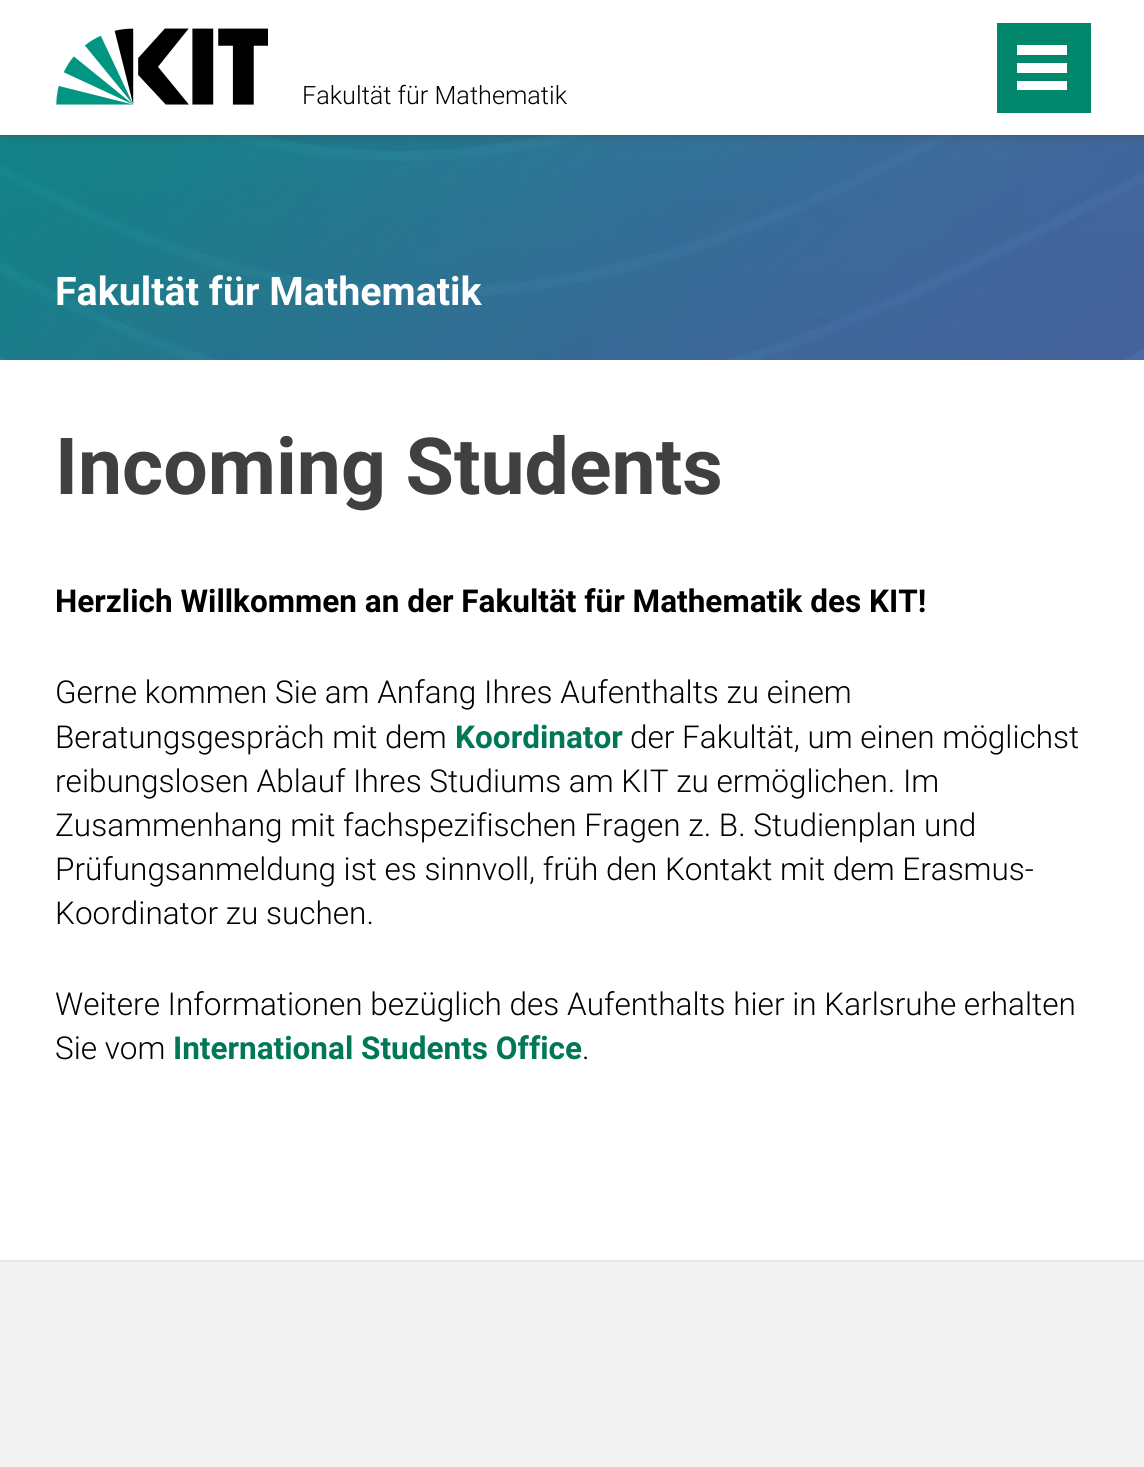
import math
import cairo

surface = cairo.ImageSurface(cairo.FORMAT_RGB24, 1144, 1467)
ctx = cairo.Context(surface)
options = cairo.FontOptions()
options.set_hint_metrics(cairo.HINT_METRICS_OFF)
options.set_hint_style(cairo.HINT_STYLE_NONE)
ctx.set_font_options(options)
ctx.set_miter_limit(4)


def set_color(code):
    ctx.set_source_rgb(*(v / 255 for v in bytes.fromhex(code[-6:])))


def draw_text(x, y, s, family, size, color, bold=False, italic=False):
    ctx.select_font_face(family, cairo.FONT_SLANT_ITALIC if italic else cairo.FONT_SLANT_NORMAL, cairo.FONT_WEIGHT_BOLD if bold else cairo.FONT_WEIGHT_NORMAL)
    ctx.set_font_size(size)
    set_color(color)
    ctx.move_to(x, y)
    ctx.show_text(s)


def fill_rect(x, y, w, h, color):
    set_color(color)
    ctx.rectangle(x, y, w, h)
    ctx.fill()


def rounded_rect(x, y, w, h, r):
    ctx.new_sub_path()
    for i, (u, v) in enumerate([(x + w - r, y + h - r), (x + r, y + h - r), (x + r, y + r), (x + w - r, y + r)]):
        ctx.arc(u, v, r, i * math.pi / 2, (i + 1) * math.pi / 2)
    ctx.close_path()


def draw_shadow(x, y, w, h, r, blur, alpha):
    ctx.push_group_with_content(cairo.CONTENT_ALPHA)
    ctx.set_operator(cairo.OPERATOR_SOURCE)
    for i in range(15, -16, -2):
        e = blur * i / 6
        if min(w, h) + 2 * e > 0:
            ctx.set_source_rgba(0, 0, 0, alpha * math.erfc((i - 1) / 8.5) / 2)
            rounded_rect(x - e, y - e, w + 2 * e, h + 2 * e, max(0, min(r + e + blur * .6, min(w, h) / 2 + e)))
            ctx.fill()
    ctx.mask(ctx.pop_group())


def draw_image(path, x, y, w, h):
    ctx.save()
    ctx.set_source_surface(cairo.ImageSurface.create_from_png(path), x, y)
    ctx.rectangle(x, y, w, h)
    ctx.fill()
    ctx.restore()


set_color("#ffffff")
ctx.paint()
draw_image("assets/img2.png", 0, 135, 1144, 225)
ctx.save()
ctx.rectangle(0, 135, 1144, 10)
ctx.clip()
set_color("#404040")
draw_shadow(0, 0, 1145, 135, 0, 5.5, 0.5)
ctx.restore()
draw_image("assets/img1.png", 56, 28, 212, 77)
draw_text(302, 104, "Fakultät für Mathematik", "Roboto Light", 25.25, "#000000")
fill_rect(997, 23, 94, 90, "#00876c")
fill_rect(1017, 81, 50, 9, "#ffffff")
fill_rect(1017, 63, 50, 10, "#ffffff")
fill_rect(1017, 45, 50, 10, "#ffffff")
draw_text(55, 305, "Fakultät für Mathematik", "Roboto", 39.4, "#ffffff", bold=True)
draw_text(55, 494, "Incoming Students", "Roboto", 78.75, "#404040", bold=True)
draw_text(55, 612, "Herzlich Willkommen an der Fakultät für Mathematik des KIT!", "Roboto", 31.5, "#000000", bold=True)
draw_text(55, 703, "Gerne kommen Sie am Anfang Ihres Aufenthalts zu einem", "Roboto Light", 31.5, "#000000")
draw_text(55, 748, "Beratungsgespräch mit dem", "Roboto Light", 31.5, "#000000")
draw_text(455, 748, "Koordinator", "Roboto", 31.5, "#007755", bold=True)
draw_text(630, 748, "der Fakultät, um einen möglichst", "Roboto Light", 31.5, "#000000")
draw_text(55, 792, "reibungslosen Ablauf Ihres Studiums am KIT zu ermöglichen. Im", "Roboto Light", 31.5, "#000000")
draw_text(55, 836, "Zusammenhang mit fachspezifischen Fragen z. B. Studienplan und", "Roboto Light", 31.5, "#000000")
draw_text(55, 880, "Prüfungsanmeldung ist es sinnvoll, früh den Kontakt mit dem Erasmus-", "Roboto Light", 31.5, "#000000")
draw_text(55, 924, "Koordinator zu suchen.", "Roboto Light", 31.5, "#000000")
draw_text(55, 1015, "Weitere Informationen bezüglich des Aufenthalts hier in Karlsruhe erhalten", "Roboto Light", 31.5, "#000000")
draw_text(55, 1059, "Sie vom", "Roboto Light", 31.5, "#000000")
draw_text(173, 1059, "International Students Office", "Roboto", 31.5, "#007755", bold=True)
draw_text(582, 1059, ".", "Roboto Light", 31.5, "#000000")
fill_rect(0, 1262, 1144, 205, "#f2f2f2")
fill_rect(0, 1260, 1144, 2, "#e6e6e6")
surface.write_to_png("output.png")
